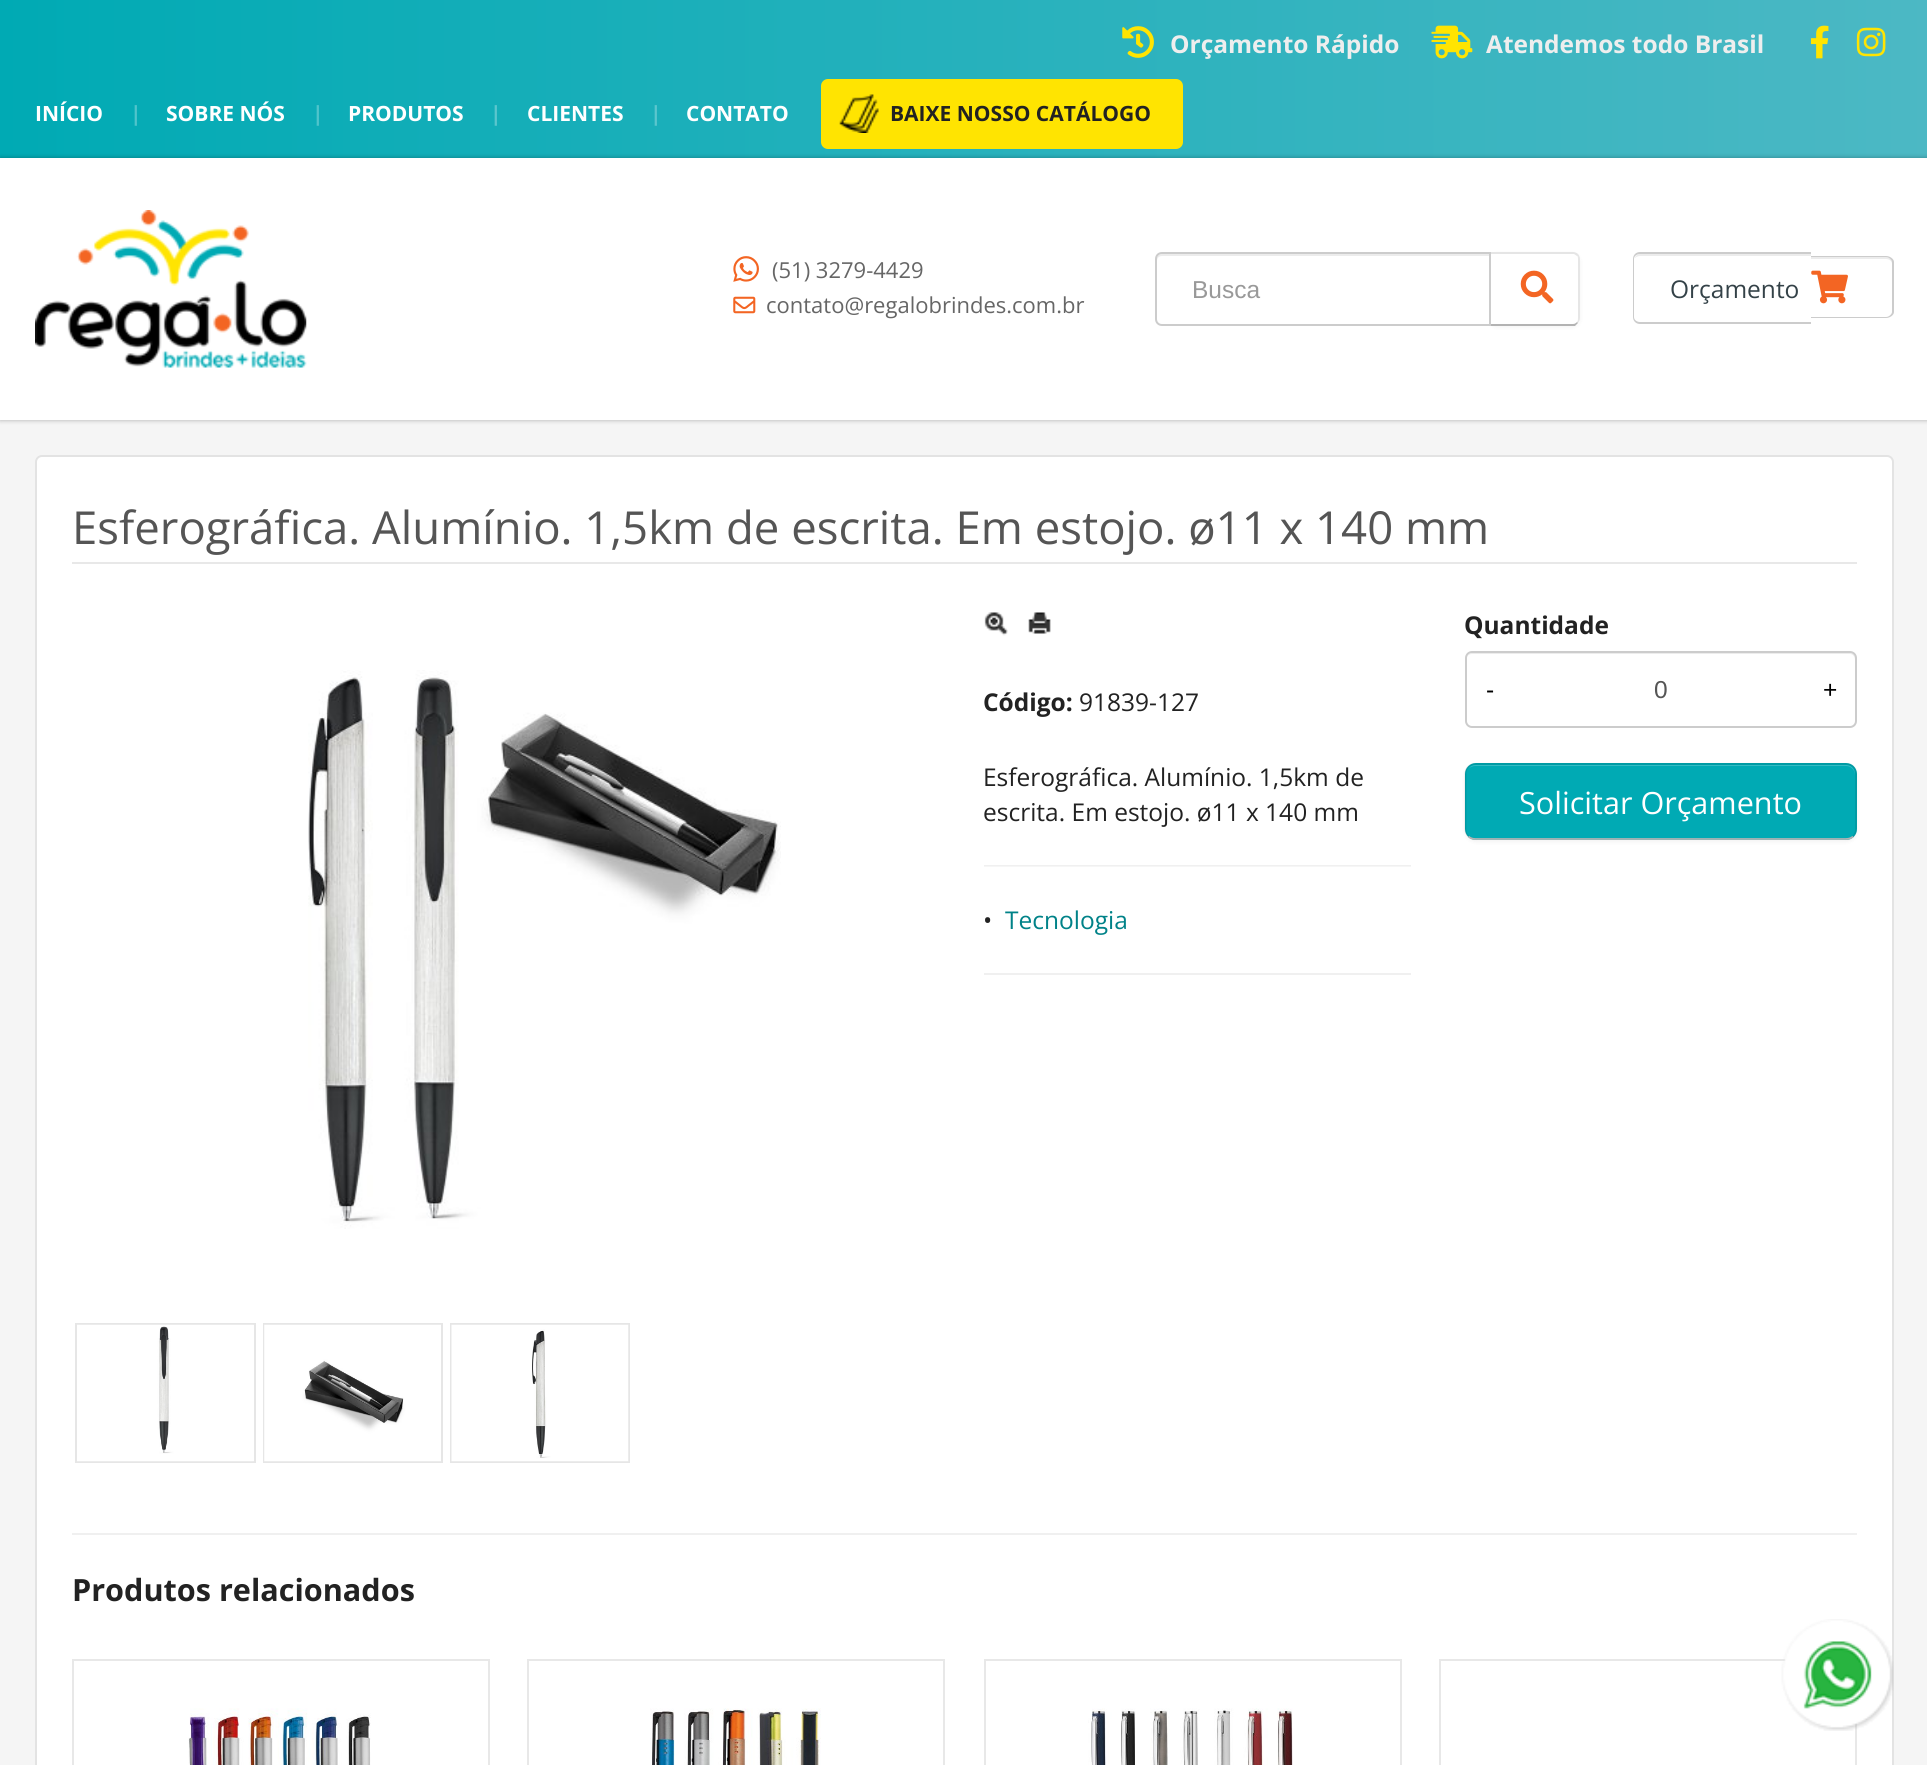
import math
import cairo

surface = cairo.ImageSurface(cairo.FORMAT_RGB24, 1927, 1765)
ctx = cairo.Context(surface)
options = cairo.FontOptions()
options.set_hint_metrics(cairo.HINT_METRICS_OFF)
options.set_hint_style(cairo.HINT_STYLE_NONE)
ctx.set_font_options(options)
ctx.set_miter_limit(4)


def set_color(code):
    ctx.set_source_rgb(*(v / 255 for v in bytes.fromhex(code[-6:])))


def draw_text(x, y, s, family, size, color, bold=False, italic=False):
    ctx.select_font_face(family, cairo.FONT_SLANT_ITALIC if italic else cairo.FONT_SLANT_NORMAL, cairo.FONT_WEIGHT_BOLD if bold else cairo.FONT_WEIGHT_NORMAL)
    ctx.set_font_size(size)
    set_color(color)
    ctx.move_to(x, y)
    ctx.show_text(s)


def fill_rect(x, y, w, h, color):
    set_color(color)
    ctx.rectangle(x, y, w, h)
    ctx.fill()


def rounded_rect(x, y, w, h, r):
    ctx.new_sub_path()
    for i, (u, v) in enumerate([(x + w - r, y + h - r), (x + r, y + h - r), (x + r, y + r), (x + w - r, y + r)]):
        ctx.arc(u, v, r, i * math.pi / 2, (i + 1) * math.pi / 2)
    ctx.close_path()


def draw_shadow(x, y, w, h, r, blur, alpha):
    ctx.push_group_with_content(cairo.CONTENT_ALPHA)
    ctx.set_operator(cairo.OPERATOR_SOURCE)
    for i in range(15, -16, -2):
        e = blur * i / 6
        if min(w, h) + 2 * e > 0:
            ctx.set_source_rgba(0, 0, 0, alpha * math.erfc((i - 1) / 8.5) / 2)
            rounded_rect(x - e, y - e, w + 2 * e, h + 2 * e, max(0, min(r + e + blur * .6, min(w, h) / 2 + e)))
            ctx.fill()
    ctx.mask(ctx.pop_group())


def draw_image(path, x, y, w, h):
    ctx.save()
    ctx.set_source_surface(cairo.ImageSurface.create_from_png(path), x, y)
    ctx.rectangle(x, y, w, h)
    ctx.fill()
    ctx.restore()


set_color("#f5f5f5")
ctx.paint()
gradient = cairo.LinearGradient(0, 79, 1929, 79)
gradient.add_color_stop_rgba(0, 0, 0.667, 0.706, 1)
gradient.add_color_stop_rgba(1, 0.298, 0.722, 0.769, 1)
ctx.set_source(gradient)
ctx.rectangle(0, 0, 1927, 158)
ctx.fill()
draw_image("assets/img1.png", 1122, 26, 32, 32)
draw_text(1170, 53, "Orçamento Rápido", "Open Sans", 24.5, "#eeeeee", bold=True)
draw_image("assets/img2.png", 1431, 25, 42, 34)
draw_text(1486, 53, "Atendemos todo Brasil", "Open Sans", 24.5, "#eeeeee", bold=True)
draw_image("assets/img3.png", 1810, 25, 19, 34)
draw_image("assets/img4.png", 1856, 27, 30, 30)
draw_text(35, 121, "INÍCIO", "Open Sans", 21, "#ffffff", bold=True)
draw_text(130, 121, "|", "Open Sans", 21, "#50c4cb", bold=True)
draw_text(166, 121, "SOBRE NÓS", "Open Sans", 21, "#ffffff", bold=True)
draw_text(312, 121, "|", "Open Sans", 21, "#50c4cb", bold=True)
draw_text(348, 121, "PRODUTOS", "Open Sans", 21, "#ffffff", bold=True)
draw_text(490, 121, "|", "Open Sans", 21, "#5bc6cd", bold=True)
draw_text(527, 121, "CLIENTES", "Open Sans", 21, "#ffffff", bold=True)
draw_text(650, 121, "|", "Open Sans", 21, "#5bc6cd", bold=True)
draw_text(686, 121, "CONTATO", "Open Sans", 21, "#ffffff", bold=True)
set_color("#ffe401")
rounded_rect(821, 79, 362, 70, 7)
ctx.fill()
draw_image("assets/img5.png", 839, 94, 40, 39)
draw_text(890, 121, "BAIXE NOSSO CATÁLOGO", "Open Sans", 21, "#222222", bold=True)
set_color("#000000")
draw_shadow(0, 158, 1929, 262, 0, 2.5, 0.3)
fill_rect(0, 158, 1927, 262, "#ffffff")
draw_image("assets/img6.png", 35, 210, 272, 158)
draw_image("assets/img7.png", 733, 256, 26, 26)
draw_text(772, 278, "(51) 3279-4429", "Open Sans", 22, "#666666")
draw_image("assets/img8.png", 733, 296, 23, 18)
draw_text(766, 313, "contato@regalobrindes.com.br", "Open Sans", 22, "#666666")
set_color("#000000")
draw_shadow(1489, 254, 91, 73, 7, 2, 0.05)
set_color("#ffffff")
ctx.new_path()
ctx.move_to(1489, 252)
ctx.line_to(1573, 252)
ctx.curve_to(1577, 252, 1580, 255, 1580, 259)
ctx.line_to(1580, 319)
ctx.curve_to(1580, 323, 1577, 326, 1573, 326)
ctx.line_to(1489, 326)
ctx.close_path()
ctx.fill()
set_color("#e5e5e5")
ctx.new_path()
ctx.move_to(1489, 252)
ctx.line_to(1491, 254)
ctx.line_to(1574, 254)
ctx.line_to(1577, 256)
ctx.line_to(1578, 254)
ctx.curve_to(1577, 253, 1575, 252, 1573, 252)
ctx.close_path()
ctx.fill()
ctx.set_source_rgba(0, 0, 0, 0.1)
ctx.new_path()
ctx.move_to(1578, 254)
ctx.curve_to(1579, 255, 1580, 257, 1580, 259)
ctx.line_to(1580, 318)
ctx.curve_to(1580, 320, 1579, 322, 1578, 323)
ctx.line_to(1577, 322)
ctx.curve_to(1578, 321, 1578, 319, 1578, 318)
ctx.line_to(1578, 259)
ctx.curve_to(1578, 258, 1578, 256, 1577, 256)
ctx.close_path()
ctx.fill()
set_color("#b3b3b3")
ctx.new_path()
ctx.move_to(1578, 323)
ctx.line_to(1575, 326)
ctx.line_to(1489, 326)
ctx.line_to(1491, 324)
ctx.line_to(1573, 324)
ctx.curve_to(1575, 324, 1576, 323, 1577, 322)
ctx.close_path()
ctx.fill()
set_color("#ffffff")
ctx.new_path()
ctx.move_to(1162, 252)
ctx.line_to(1491, 252)
ctx.line_to(1491, 326)
ctx.line_to(1162, 326)
ctx.curve_to(1158, 326, 1155, 323, 1155, 319)
ctx.line_to(1155, 259)
ctx.curve_to(1155, 255, 1158, 252, 1162, 252)
ctx.close_path()
ctx.fill()
set_color("#ececec")
ctx.new_path()
ctx.move_to(1162, 256)
ctx.line_to(1489, 256)
ctx.line_to(1489, 254)
ctx.line_to(1162, 254)
ctx.curve_to(1159, 254, 1157, 256, 1157, 259)
ctx.line_to(1157, 261)
ctx.curve_to(1157, 258, 1159, 256, 1162, 256)
ctx.close_path()
ctx.fill()
ctx.new_path()
ctx.move_to(1162, 253)
ctx.line_to(1490, 253)
ctx.line_to(1490, 325)
ctx.line_to(1162, 325)
ctx.curve_to(1158.5, 325, 1156, 322.5, 1156, 319)
ctx.line_to(1156, 259)
ctx.curve_to(1156, 255.5, 1158.5, 253, 1162, 253)
ctx.close_path()
set_color("#cccccc")
ctx.stroke()
draw_text(1192, 298, "Busca", "Liberation Sans", 24.5, "#999999")
draw_image("assets/img9.png", 1520, 270, 34, 34)
set_color("#ececec")
ctx.new_path()
ctx.move_to(1640, 256)
ctx.line_to(1811, 256)
ctx.line_to(1811, 254)
ctx.line_to(1640, 254)
ctx.curve_to(1638, 254, 1635, 256, 1635, 258)
ctx.curve_to(1636, 257, 1638, 256, 1640, 256)
ctx.close_path()
ctx.fill()
set_color("#cccccc")
ctx.set_fill_rule(cairo.FILL_RULE_EVEN_ODD)
ctx.new_path()
ctx.move_to(1640, 252)
ctx.line_to(1811, 252)
ctx.line_to(1811, 324)
ctx.line_to(1640, 324)
ctx.curve_to(1636, 324, 1633, 321, 1633, 317)
ctx.line_to(1633, 259)
ctx.curve_to(1633, 255, 1636, 252, 1640, 252)
ctx.close_path()
ctx.move_to(1640, 254)
ctx.line_to(1811, 254)
ctx.line_to(1811, 322)
ctx.line_to(1640, 322)
ctx.curve_to(1637, 322, 1634, 320, 1634, 317)
ctx.line_to(1634, 259)
ctx.curve_to(1634, 256, 1637, 254, 1640, 254)
ctx.close_path()
ctx.fill()
set_color("#ececec")
ctx.set_fill_rule(cairo.FILL_RULE_WINDING)
ctx.new_path()
ctx.move_to(1811, 259)
ctx.line_to(1886, 259)
ctx.curve_to(1889, 259, 1892, 261, 1892, 264)
ctx.line_to(1892, 262)
ctx.curve_to(1892, 259, 1890, 257, 1887, 257)
ctx.line_to(1811, 257)
ctx.close_path()
ctx.fill()
set_color("#cccccc")
ctx.set_fill_rule(cairo.FILL_RULE_EVEN_ODD)
ctx.new_path()
ctx.move_to(1811, 256)
ctx.line_to(1886, 256)
ctx.curve_to(1890, 256, 1894, 259, 1894, 262)
ctx.line_to(1894, 312)
ctx.curve_to(1894, 315, 1890, 318, 1886, 318)
ctx.line_to(1811, 318)
ctx.close_path()
ctx.move_to(1811, 257)
ctx.line_to(1886, 257)
ctx.curve_to(1889, 257, 1892, 260, 1892, 262)
ctx.line_to(1892, 312)
ctx.curve_to(1892, 314, 1889, 317, 1886, 317)
ctx.line_to(1811, 317)
ctx.close_path()
ctx.fill()
draw_text(1670, 298, "Orçamento", "Open Sans", 24.5, "#344248")
draw_image("assets/img10.png", 1811, 270, 37, 34)
set_color("#ffffff")
rounded_rect(36, 456, 1857, 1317, 6)
ctx.fill_preserve()
set_color("#e3e3e3")
ctx.stroke()
fill_rect(72, 562, 1785, 2, "#e8e8e8")
draw_text(72, 544, "Esferográfica. Alumínio. 1,5km de escrita. Em estojo. ø11 x 140 mm", "Open Sans", 45.5, "#555555")
draw_image("assets/img11.png", 308, 670, 473, 559)
ctx.rectangle(76, 1324, 179, 138)
set_color("#e6e6e6")
ctx.stroke()
draw_image("assets/img12.png", 77, 1324, 177, 138)
ctx.rectangle(264, 1324, 178, 138)
ctx.stroke()
draw_image("assets/img13.png", 264, 1324, 177, 138)
ctx.rectangle(451, 1324, 178, 138)
ctx.stroke()
draw_image("assets/img14.png", 451, 1324, 178, 138)
draw_image("assets/img15.png", 984, 612, 24, 24)
draw_image("assets/img16.png", 1028, 612, 23, 22)
draw_text(983, 711, "Código:", "Open Sans", 24.5, "#222222", bold=True)
draw_text(1079, 711, "91839-127", "Open Sans", 24.5, "#222222")
draw_text(983, 786, "Esferográfica. Alumínio. 1,5km de", "Open Sans", 24.5, "#222222")
draw_text(983, 821, "escrita. Em estojo. ø11 x 140 mm", "Open Sans", 24.5, "#222222")
fill_rect(984, 865, 427, 1, "#f0f0f0")
fill_rect(984, 866, 427, 1, "#f6f6f6")
draw_text(983, 929, "•", "Open Sans", 24.5, "#222222")
draw_text(1005, 929, "Tecnologia", "Open Sans", 24.5, "#008288")
fill_rect(984, 973, 427, 2, "#f0f0f0")
draw_text(1464, 634, "Quantidade", "Open Sans", 24.5, "#222222", bold=True)
set_color("#ececec")
ctx.set_fill_rule(cairo.FILL_RULE_WINDING)
ctx.new_path()
ctx.move_to(1472, 654)
ctx.line_to(1850, 654)
ctx.curve_to(1853, 654, 1855, 657, 1855, 660)
ctx.line_to(1855, 658)
ctx.curve_to(1855, 655, 1853, 653, 1850, 653)
ctx.line_to(1472, 653)
ctx.curve_to(1470, 653, 1468, 655, 1467, 657)
ctx.curve_to(1468, 655, 1470, 654, 1472, 654)
ctx.close_path()
ctx.fill()
rounded_rect(1466, 652, 390, 75, 6)
set_color("#cccccc")
ctx.stroke()
draw_text(1486, 698, "-", "Liberation Sans", 24.5, "#000000")
draw_text(1654, 698, "0", "Liberation Sans", 24.5, "#555555")
draw_text(1823, 698, "+", "Liberation Sans", 24.5, "#000000")
set_color("#000000")
draw_shadow(1465, 765, 392, 77, 11, 2, 0.05)
set_color("#00aab4")
rounded_rect(1465, 763, 392, 77, 11)
ctx.fill()
set_color("#33bbc3")
ctx.new_path()
ctx.move_to(1475, 766)
ctx.line_to(1846, 766)
ctx.curve_to(1851, 766, 1855, 770, 1855, 775)
ctx.line_to(1855, 774)
ctx.curve_to(1855, 769, 1851, 765, 1846, 765)
ctx.line_to(1476, 765)
ctx.curve_to(1473, 765, 1471, 766, 1469, 768)
ctx.curve_to(1471, 767, 1473, 766, 1475, 766)
ctx.close_path()
ctx.fill()
ctx.new_path()
ctx.move_to(1853, 836.5)
ctx.curve_to(1851.5, 838, 1849, 839, 1846, 839)
ctx.line_to(1475, 839)
ctx.curve_to(1472.5, 839, 1470, 838, 1468.5, 836.5)
set_color("#b3b3b3")
ctx.set_line_width(1.8)
ctx.stroke()
ctx.new_path()
ctx.move_to(1468.5, 836.5)
ctx.curve_to(1466.5, 834.5, 1465.5, 832, 1465.5, 829.5)
ctx.line_to(1465.5, 773.5)
ctx.curve_to(1465.5, 771, 1466.5, 768.5, 1468.5, 766.5)
ctx.curve_to(1470, 765, 1472.5, 764, 1475, 764)
ctx.line_to(1846, 764)
ctx.curve_to(1849, 764, 1851.5, 765, 1853, 766.5)
ctx.curve_to(1855, 768.5, 1856, 771, 1856, 773.5)
ctx.line_to(1856, 829.5)
ctx.curve_to(1856, 832, 1855, 834.5, 1853, 836.5)
ctx.set_source_rgba(0, 0, 0, 0.1)
ctx.stroke()
draw_text(1519, 814, "Solicitar Orçamento", "Open Sans", 30.6, "#ffffff")
fill_rect(72, 1533, 1785, 2, "#f0f0f0")
draw_text(72, 1601, "Produtos relacionados", "Open Sans", 30.6, "#222222", bold=True)
ctx.rectangle(73, 1660, 416, 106)
set_color("#e8e8e8")
ctx.set_line_width(2)
ctx.stroke()
draw_image("assets/img17.png", 188, 1708, 183, 57)
ctx.rectangle(528, 1660, 416, 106)
ctx.stroke()
draw_image("assets/img18.png", 650, 1708, 171, 57)
ctx.rectangle(985, 1660, 416, 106)
ctx.stroke()
draw_image("assets/img19.png", 1088, 1708, 205, 57)
ctx.rectangle(1440, 1660, 416, 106)
ctx.stroke()
draw_image("assets/img20.png", 1781, 1619, 113, 112)
surface.write_to_png("output.png")
